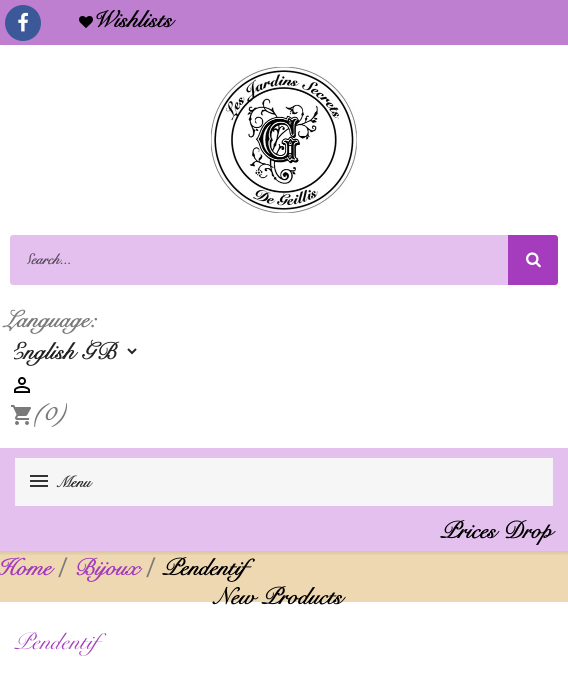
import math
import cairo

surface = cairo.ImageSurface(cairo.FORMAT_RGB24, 568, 695)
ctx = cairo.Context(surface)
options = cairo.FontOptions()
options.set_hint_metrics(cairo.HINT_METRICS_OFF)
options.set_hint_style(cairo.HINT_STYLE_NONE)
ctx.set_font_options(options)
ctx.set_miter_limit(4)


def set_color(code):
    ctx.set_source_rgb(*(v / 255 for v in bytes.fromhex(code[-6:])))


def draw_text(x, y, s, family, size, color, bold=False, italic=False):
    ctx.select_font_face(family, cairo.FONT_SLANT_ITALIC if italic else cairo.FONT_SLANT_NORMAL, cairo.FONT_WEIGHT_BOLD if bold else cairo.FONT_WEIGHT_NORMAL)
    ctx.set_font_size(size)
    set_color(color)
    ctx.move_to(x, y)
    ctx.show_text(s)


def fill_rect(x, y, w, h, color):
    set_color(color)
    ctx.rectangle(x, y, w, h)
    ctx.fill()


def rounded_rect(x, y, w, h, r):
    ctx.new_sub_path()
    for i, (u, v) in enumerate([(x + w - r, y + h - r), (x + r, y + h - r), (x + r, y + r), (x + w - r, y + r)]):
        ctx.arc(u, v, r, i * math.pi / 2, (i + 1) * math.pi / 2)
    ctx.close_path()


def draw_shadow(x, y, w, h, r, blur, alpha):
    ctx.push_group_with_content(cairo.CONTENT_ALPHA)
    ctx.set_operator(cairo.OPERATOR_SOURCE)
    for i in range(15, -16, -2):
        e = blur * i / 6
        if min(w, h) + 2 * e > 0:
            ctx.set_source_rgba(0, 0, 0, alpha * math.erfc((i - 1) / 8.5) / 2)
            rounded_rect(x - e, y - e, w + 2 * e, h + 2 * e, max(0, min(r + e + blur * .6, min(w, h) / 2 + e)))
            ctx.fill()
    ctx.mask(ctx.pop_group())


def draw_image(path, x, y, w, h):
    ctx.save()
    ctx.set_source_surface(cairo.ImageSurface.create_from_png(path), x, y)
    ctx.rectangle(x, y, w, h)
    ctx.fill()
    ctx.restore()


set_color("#ffffff")
ctx.paint()
fill_rect(0, 551, 568, 51, "#eed8b1")
ctx.save()
ctx.rectangle(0, 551, 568, 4)
ctx.clip()
set_color("#000000")
draw_shadow(0, 2, 568, 551, 0, 2.5, 0.11)
ctx.restore()
fill_rect(0, 0, 568, 45, "#be7fd1")
set_color("#3b5998")
ctx.arc(23, 23, 18, 0, 2 * math.pi)
ctx.fill()
draw_image("assets/img1.png", 18, 12, 10, 20)
draw_image("assets/img2.png", 79, 16, 14, 12)
draw_text(98, 27, "Wishlists", "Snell", 24, "#000000", bold=True)
draw_image("assets/img3.png", 211, 67, 146, 146)
set_color("#e4c0ee")
rounded_rect(10, 235, 548, 50, 3)
ctx.fill()
ctx.save()
ctx.rectangle(27, 250, 425, 19)
ctx.clip()
draw_text(27, 264, "Search...", "Snell", 15, "#5b4d5f", bold=True)
ctx.restore()
set_color("#a43cbd")
ctx.new_path()
ctx.move_to(508, 235)
ctx.line_to(555, 235)
ctx.curve_to(556.5, 235, 558, 236.5, 558, 238)
ctx.line_to(558, 282)
ctx.curve_to(558, 283.5, 556.5, 285, 555, 285)
ctx.line_to(508, 285)
ctx.close_path()
ctx.fill()
draw_image("assets/img4.png", 526, 252, 15, 16)
draw_text(10, 327, "Language:", "Snell", 24, "#7a7a7a", bold=True)
ctx.new_path()
ctx.move_to(128, 349)
ctx.line_to(132, 353)
ctx.line_to(136, 349)
set_color("#232323")
ctx.stroke()
ctx.save()
ctx.rectangle(14, 335, 110, 33)
ctx.clip()
draw_text(14, 359, "English GB", "Snell", 24, "#232323", bold=True)
ctx.restore()
draw_image("assets/img5.png", 14, 377, 16, 16)
draw_image("assets/img6.png", 11, 405, 20, 20)
draw_text(40, 420, "(0)", "Snell", 24, "#7a7a7a", bold=True)
fill_rect(0, 448, 568, 103, "#e4c0ee")
fill_rect(15, 458, 538, 48, "#f6f6f6")
fill_rect(30, 475, 18, 2, "#333333")
fill_rect(30, 480, 18, 2, "#333333")
fill_rect(30, 485, 18, 2, "#333333")
draw_text(62, 487, "Menu", "Snell", 16, "#333333", bold=True)
draw_text(446, 538, "Prices Drop", "Snell", 24, "#000000", bold=True)
draw_text(220, 604, "New Products", "Snell", 24, "#000000", bold=True)
draw_text(3, 575, "Home", "Snell", 24, "#a43cbd", bold=True)
draw_text(62, 575, "/", "Snell", 24, "#7a7a7a", bold=True)
draw_text(80, 575, "Bijoux", "Snell", 24, "#a43cbd", bold=True)
draw_text(150, 575, "/", "Snell", 24, "#7a7a7a", bold=True)
draw_text(168, 575, "Pendentif", "Snell", 24, "#000000", bold=True)
draw_text(20, 649, "Pendentif", "Snell", 24, "#a43cbd")
surface.write_to_png("output.png")
